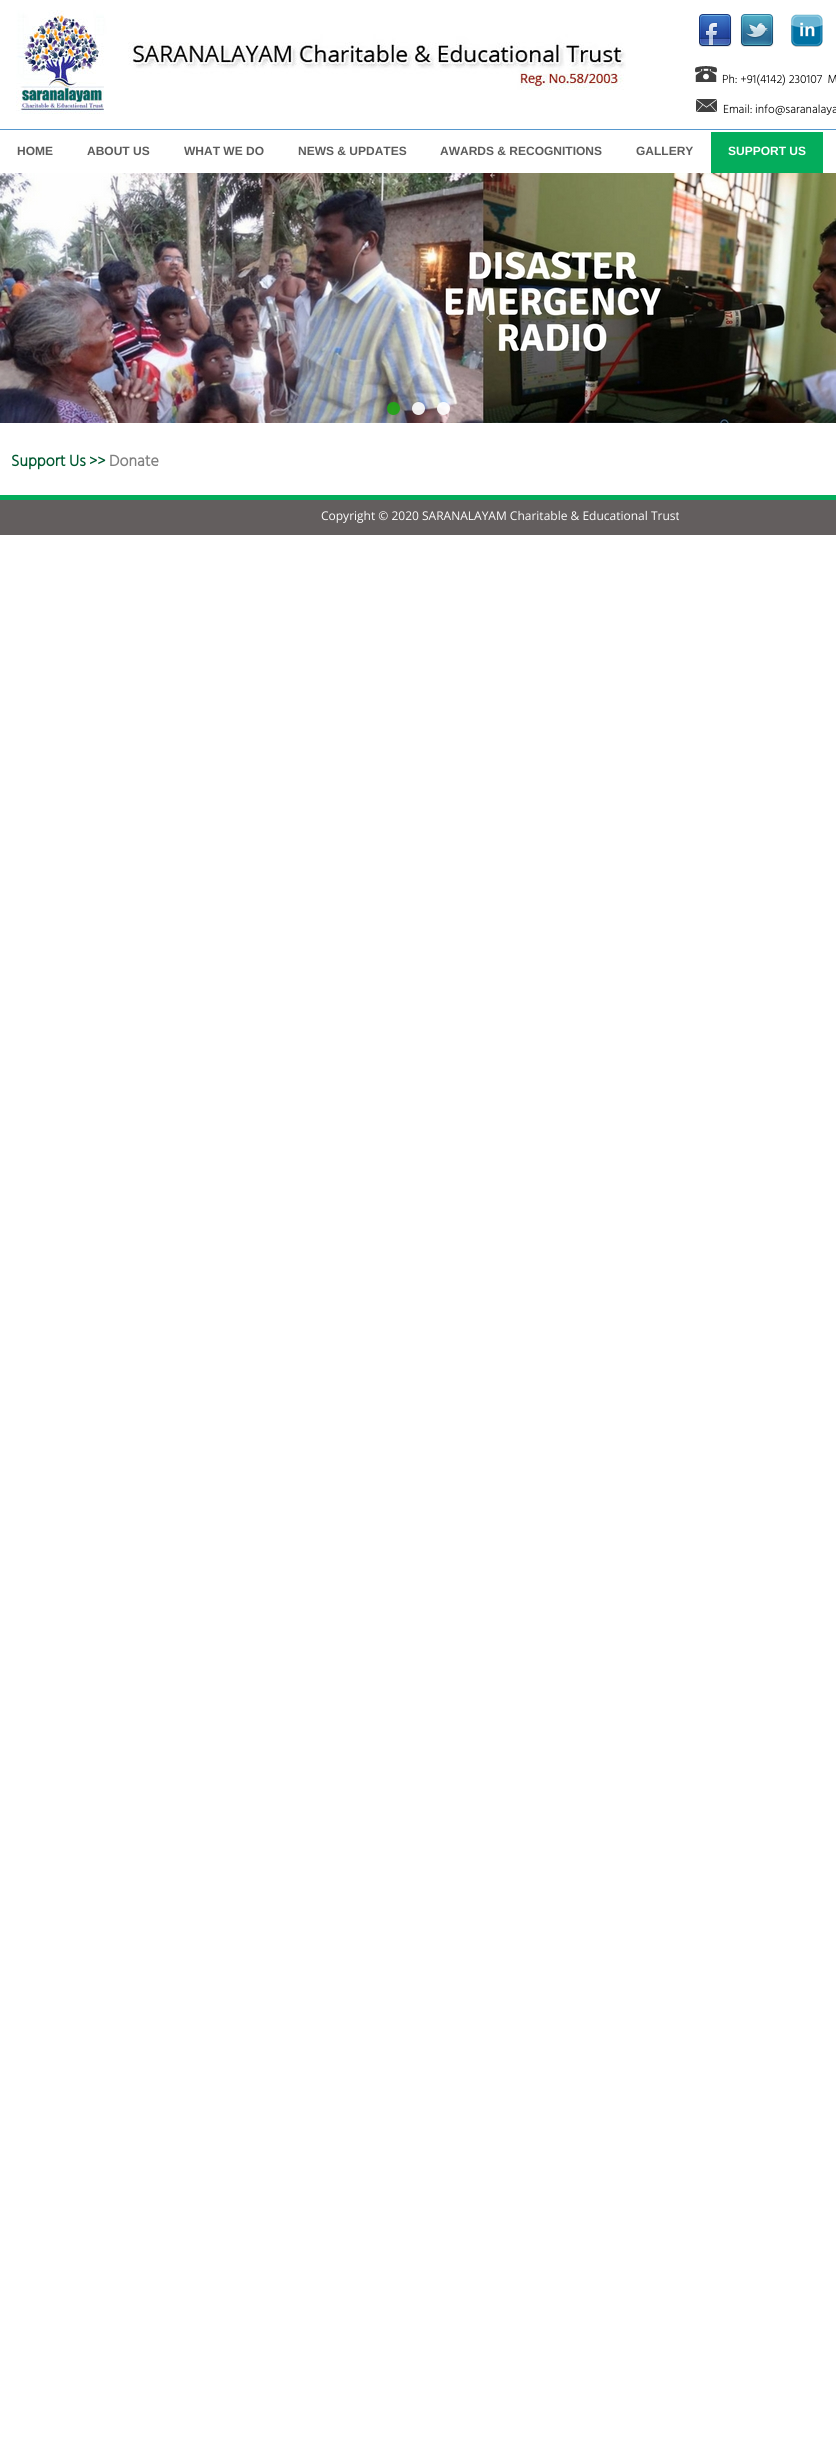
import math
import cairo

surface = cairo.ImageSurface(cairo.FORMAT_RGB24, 836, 2439)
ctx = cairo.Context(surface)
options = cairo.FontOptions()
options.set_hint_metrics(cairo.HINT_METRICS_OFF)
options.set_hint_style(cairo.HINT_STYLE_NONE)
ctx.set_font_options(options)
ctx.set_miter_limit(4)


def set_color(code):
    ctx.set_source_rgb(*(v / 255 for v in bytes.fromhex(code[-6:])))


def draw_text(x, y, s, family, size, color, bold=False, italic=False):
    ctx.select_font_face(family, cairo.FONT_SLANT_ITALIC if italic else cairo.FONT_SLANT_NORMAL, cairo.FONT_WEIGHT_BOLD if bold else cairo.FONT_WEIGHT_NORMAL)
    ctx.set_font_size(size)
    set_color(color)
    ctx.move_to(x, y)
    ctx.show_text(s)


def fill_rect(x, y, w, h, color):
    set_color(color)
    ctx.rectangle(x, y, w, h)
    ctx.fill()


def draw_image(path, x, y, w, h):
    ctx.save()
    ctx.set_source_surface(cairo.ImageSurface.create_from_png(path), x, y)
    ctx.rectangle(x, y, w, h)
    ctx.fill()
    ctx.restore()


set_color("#ffffff")
ctx.paint()
draw_image("assets/img1.png", 16, 10, 610, 104)
draw_image("assets/img2.png", 699, 14, 33, 33)
draw_image("assets/img3.png", 740, 14, 34, 33)
draw_image("assets/img4.png", 790, 14, 33, 33)
draw_image("assets/img5.png", 695, 66, 22, 16)
draw_text(722, 83, "Ph: +91(4142) 230107  M", "Hind Siliguri Light", 12, "#000000")
draw_image("assets/img6.png", 696, 99, 21, 13)
draw_text(723, 113, "Email: info@saranalaya", "Hind Siliguri Light", 12, "#000000")
fill_rect(0, 129, 836, 1, "#5798ce")
draw_text(17, 155, "HOME", "Liberation Sans", 12, "#5c5c5c", bold=True)
draw_text(87, 155, "ABOUT US", "Liberation Sans", 12, "#5c5c5c", bold=True)
draw_text(184, 155, "WHAT WE DO", "Liberation Sans", 12, "#5c5c5c", bold=True)
draw_text(298, 155, "NEWS & UPDATES", "Liberation Sans", 12, "#5c5c5c", bold=True)
draw_text(440, 155, "AWARDS & RECOGNITIONS", "Liberation Sans", 12, "#5c5c5c", bold=True)
draw_text(636, 155, "GALLERY", "Liberation Sans", 12, "#5c5c5c", bold=True)
fill_rect(711, 132, 112, 41, "#04ad5c")
draw_text(728, 155, "SUPPORT US", "Liberation Sans", 12, "#ffffff", bold=True)
draw_image("assets/img7.png", 0, 173, 836, 250)
ctx.set_source_rgba(0.125, 0.647, 0.082, 0.9)
ctx.arc(393.5, 408.5, 6.5, 0, 2 * math.pi)
ctx.fill()
ctx.set_source_rgba(1, 1, 1, 0.9)
ctx.arc(418.5, 408.5, 6.5, 0, 2 * math.pi)
ctx.fill()
ctx.arc(443.5, 408.5, 6.5, 0, 2 * math.pi)
ctx.fill()
draw_text(11, 466, "Support Us >>", "Hind Siliguri", 16, "#015931", bold=True)
draw_text(109, 466, "Donate", "Hind Siliguri", 16, "#808080", bold=True)
fill_rect(0, 500, 836, 35, "#635e5e")
fill_rect(0, 495, 836, 5, "#03ad5b")
draw_text(321, 520, "Copyright © 2020 SARANALAYAM Charitable & Educational Trust", "Open Sans", 12, "#ffffff")
surface.write_to_png("output.png")
